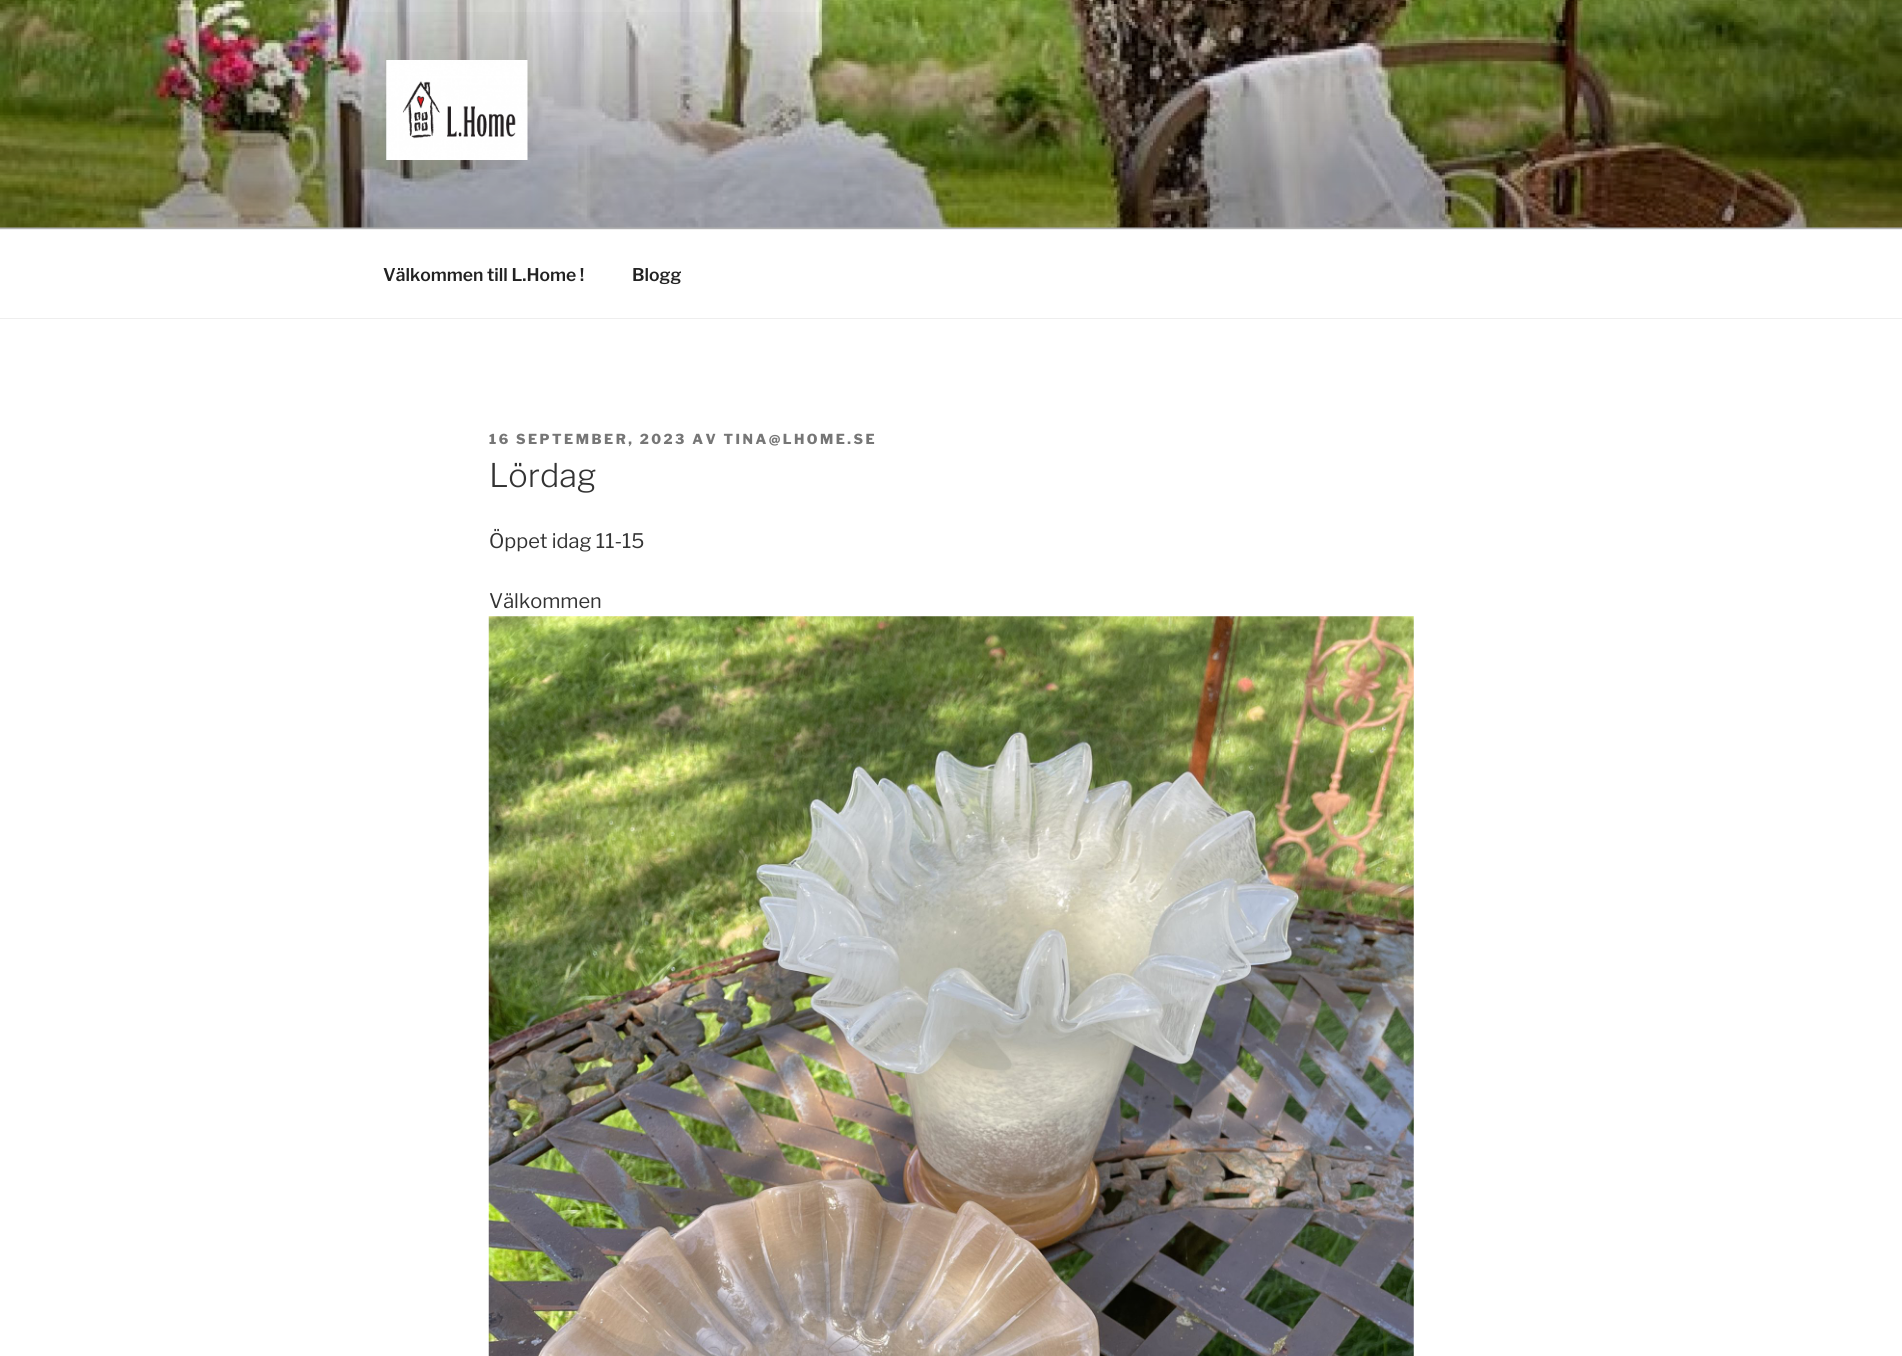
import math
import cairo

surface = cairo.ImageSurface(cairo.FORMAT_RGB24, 1902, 1356)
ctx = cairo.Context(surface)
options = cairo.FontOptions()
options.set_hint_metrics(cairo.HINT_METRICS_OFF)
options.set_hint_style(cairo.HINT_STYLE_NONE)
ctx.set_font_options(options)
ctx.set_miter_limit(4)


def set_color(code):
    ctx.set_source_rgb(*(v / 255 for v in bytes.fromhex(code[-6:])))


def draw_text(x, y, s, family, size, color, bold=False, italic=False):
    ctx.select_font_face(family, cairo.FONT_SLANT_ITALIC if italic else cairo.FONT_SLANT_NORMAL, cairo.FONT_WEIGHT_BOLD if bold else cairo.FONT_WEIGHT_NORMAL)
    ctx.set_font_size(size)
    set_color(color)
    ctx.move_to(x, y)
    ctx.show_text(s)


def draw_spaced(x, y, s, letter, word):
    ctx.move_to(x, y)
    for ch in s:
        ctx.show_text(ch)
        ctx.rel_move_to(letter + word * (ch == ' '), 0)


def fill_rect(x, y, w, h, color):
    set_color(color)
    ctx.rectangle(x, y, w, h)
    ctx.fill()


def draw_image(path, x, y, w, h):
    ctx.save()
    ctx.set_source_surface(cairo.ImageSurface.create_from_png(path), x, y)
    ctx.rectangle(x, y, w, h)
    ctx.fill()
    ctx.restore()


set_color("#ffffff")
ctx.paint()
fill_rect(0, 227, 1902, 2, "#fafafa")
draw_image("assets/img1.png", 0, 0, 1902, 228)
gradient = cairo.LinearGradient(951, 0, 951, 229)
gradient.add_color_stop_rgba(0, 0, 0, 0, 0)
gradient.add_color_stop_rgba(0.75, 0, 0, 0, 0.3)
gradient.add_color_stop_rgba(1, 0, 0, 0, 0.3)
ctx.set_source(gradient)
ctx.rectangle(0, 12, 1902, 217)
ctx.fill()
draw_image("assets/img2.png", 386, 60, 142, 100)
fill_rect(0, 229, 1902, 1, "#eeeeee")
fill_rect(0, 318, 1902, 1, "#eeeeee")
draw_text(383, 281, "Välkommen till L.Home !", "Libre Franklin SemiBold", 17.5, "#222222")
draw_text(632, 281, "Blogg", "Libre Franklin SemiBold", 17.5, "#222222")
ctx.select_font_face("Libre Franklin ExtraBold")
ctx.set_font_size(13.75)
set_color("#767676")
draw_spaced(489, 444, "16 SEPTEMBER, 2023 AV TINA@LHOME.SE", 2.5, 0)
draw_text(489, 487, "Lördag", "Libre Franklin Light", 32.5, "#333333")
draw_text(489, 548, "Öppet idag 11-15", "Libre Franklin", 20, "#333333")
draw_text(489, 608, "Välkommen", "Libre Franklin", 20, "#333333")
draw_image("assets/img3.png", 488, 616, 926, 740)
surface.write_to_png("output.png")
